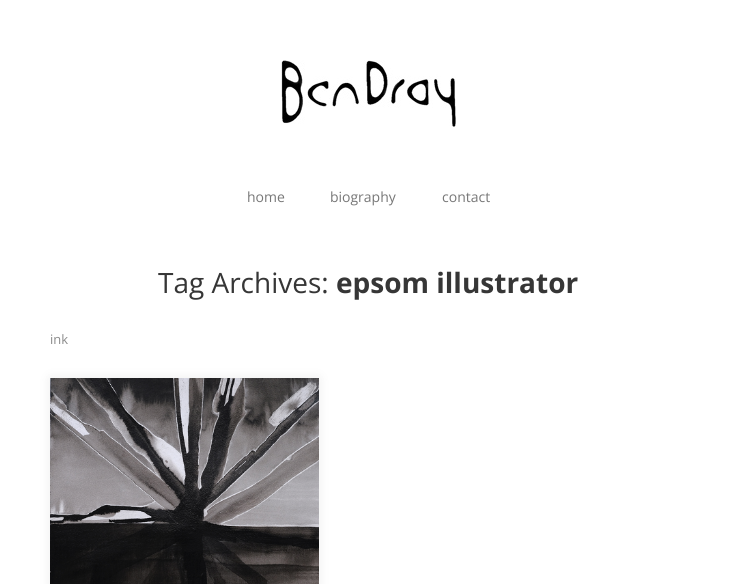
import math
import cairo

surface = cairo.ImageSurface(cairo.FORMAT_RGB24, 737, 584)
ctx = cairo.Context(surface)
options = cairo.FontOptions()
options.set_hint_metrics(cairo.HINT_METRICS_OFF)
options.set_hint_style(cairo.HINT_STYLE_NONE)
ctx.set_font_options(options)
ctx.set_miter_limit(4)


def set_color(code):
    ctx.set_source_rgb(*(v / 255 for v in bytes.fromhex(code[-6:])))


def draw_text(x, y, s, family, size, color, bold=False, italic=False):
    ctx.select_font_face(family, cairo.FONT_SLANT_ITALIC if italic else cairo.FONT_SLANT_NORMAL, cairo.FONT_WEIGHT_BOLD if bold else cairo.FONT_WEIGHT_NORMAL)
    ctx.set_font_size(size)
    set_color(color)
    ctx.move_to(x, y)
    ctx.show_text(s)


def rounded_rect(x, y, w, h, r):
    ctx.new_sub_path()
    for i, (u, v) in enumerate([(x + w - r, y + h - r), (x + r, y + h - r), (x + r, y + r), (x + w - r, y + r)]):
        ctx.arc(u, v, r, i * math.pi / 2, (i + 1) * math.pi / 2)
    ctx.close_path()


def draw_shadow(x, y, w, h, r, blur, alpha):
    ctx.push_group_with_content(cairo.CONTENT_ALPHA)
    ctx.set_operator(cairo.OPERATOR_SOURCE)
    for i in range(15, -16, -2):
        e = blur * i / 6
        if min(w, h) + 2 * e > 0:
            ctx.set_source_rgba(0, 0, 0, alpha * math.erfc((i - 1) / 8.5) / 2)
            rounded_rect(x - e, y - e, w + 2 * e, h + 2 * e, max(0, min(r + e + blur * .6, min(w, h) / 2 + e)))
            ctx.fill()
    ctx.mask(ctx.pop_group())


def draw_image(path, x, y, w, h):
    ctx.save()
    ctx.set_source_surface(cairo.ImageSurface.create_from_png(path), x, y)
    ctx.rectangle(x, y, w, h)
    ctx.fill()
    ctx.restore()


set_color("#ffffff")
ctx.paint()
draw_image("assets/img1.png", 281, 60, 175, 67)
draw_text(247, 202, "home", "Open Sans", 14, "#777777")
draw_text(330, 202, "biography", "Open Sans", 14, "#777777")
draw_text(442, 202, "contact", "Open Sans", 14, "#777777")
draw_text(158, 293, "Tag Archives:", "Open Sans", 28, "#363636")
draw_text(336, 293, "epsom illustrator", "Open Sans", 28, "#363636", bold=True)
draw_text(50, 344, "ink", "Open Sans", 13, "#8b8b8b")
set_color("#000000")
draw_shadow(50, 378, 269, 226, 0, 6.5, 0.07)
draw_image("assets/img2.png", 50, 378, 269, 206)
surface.write_to_png("output.png")
